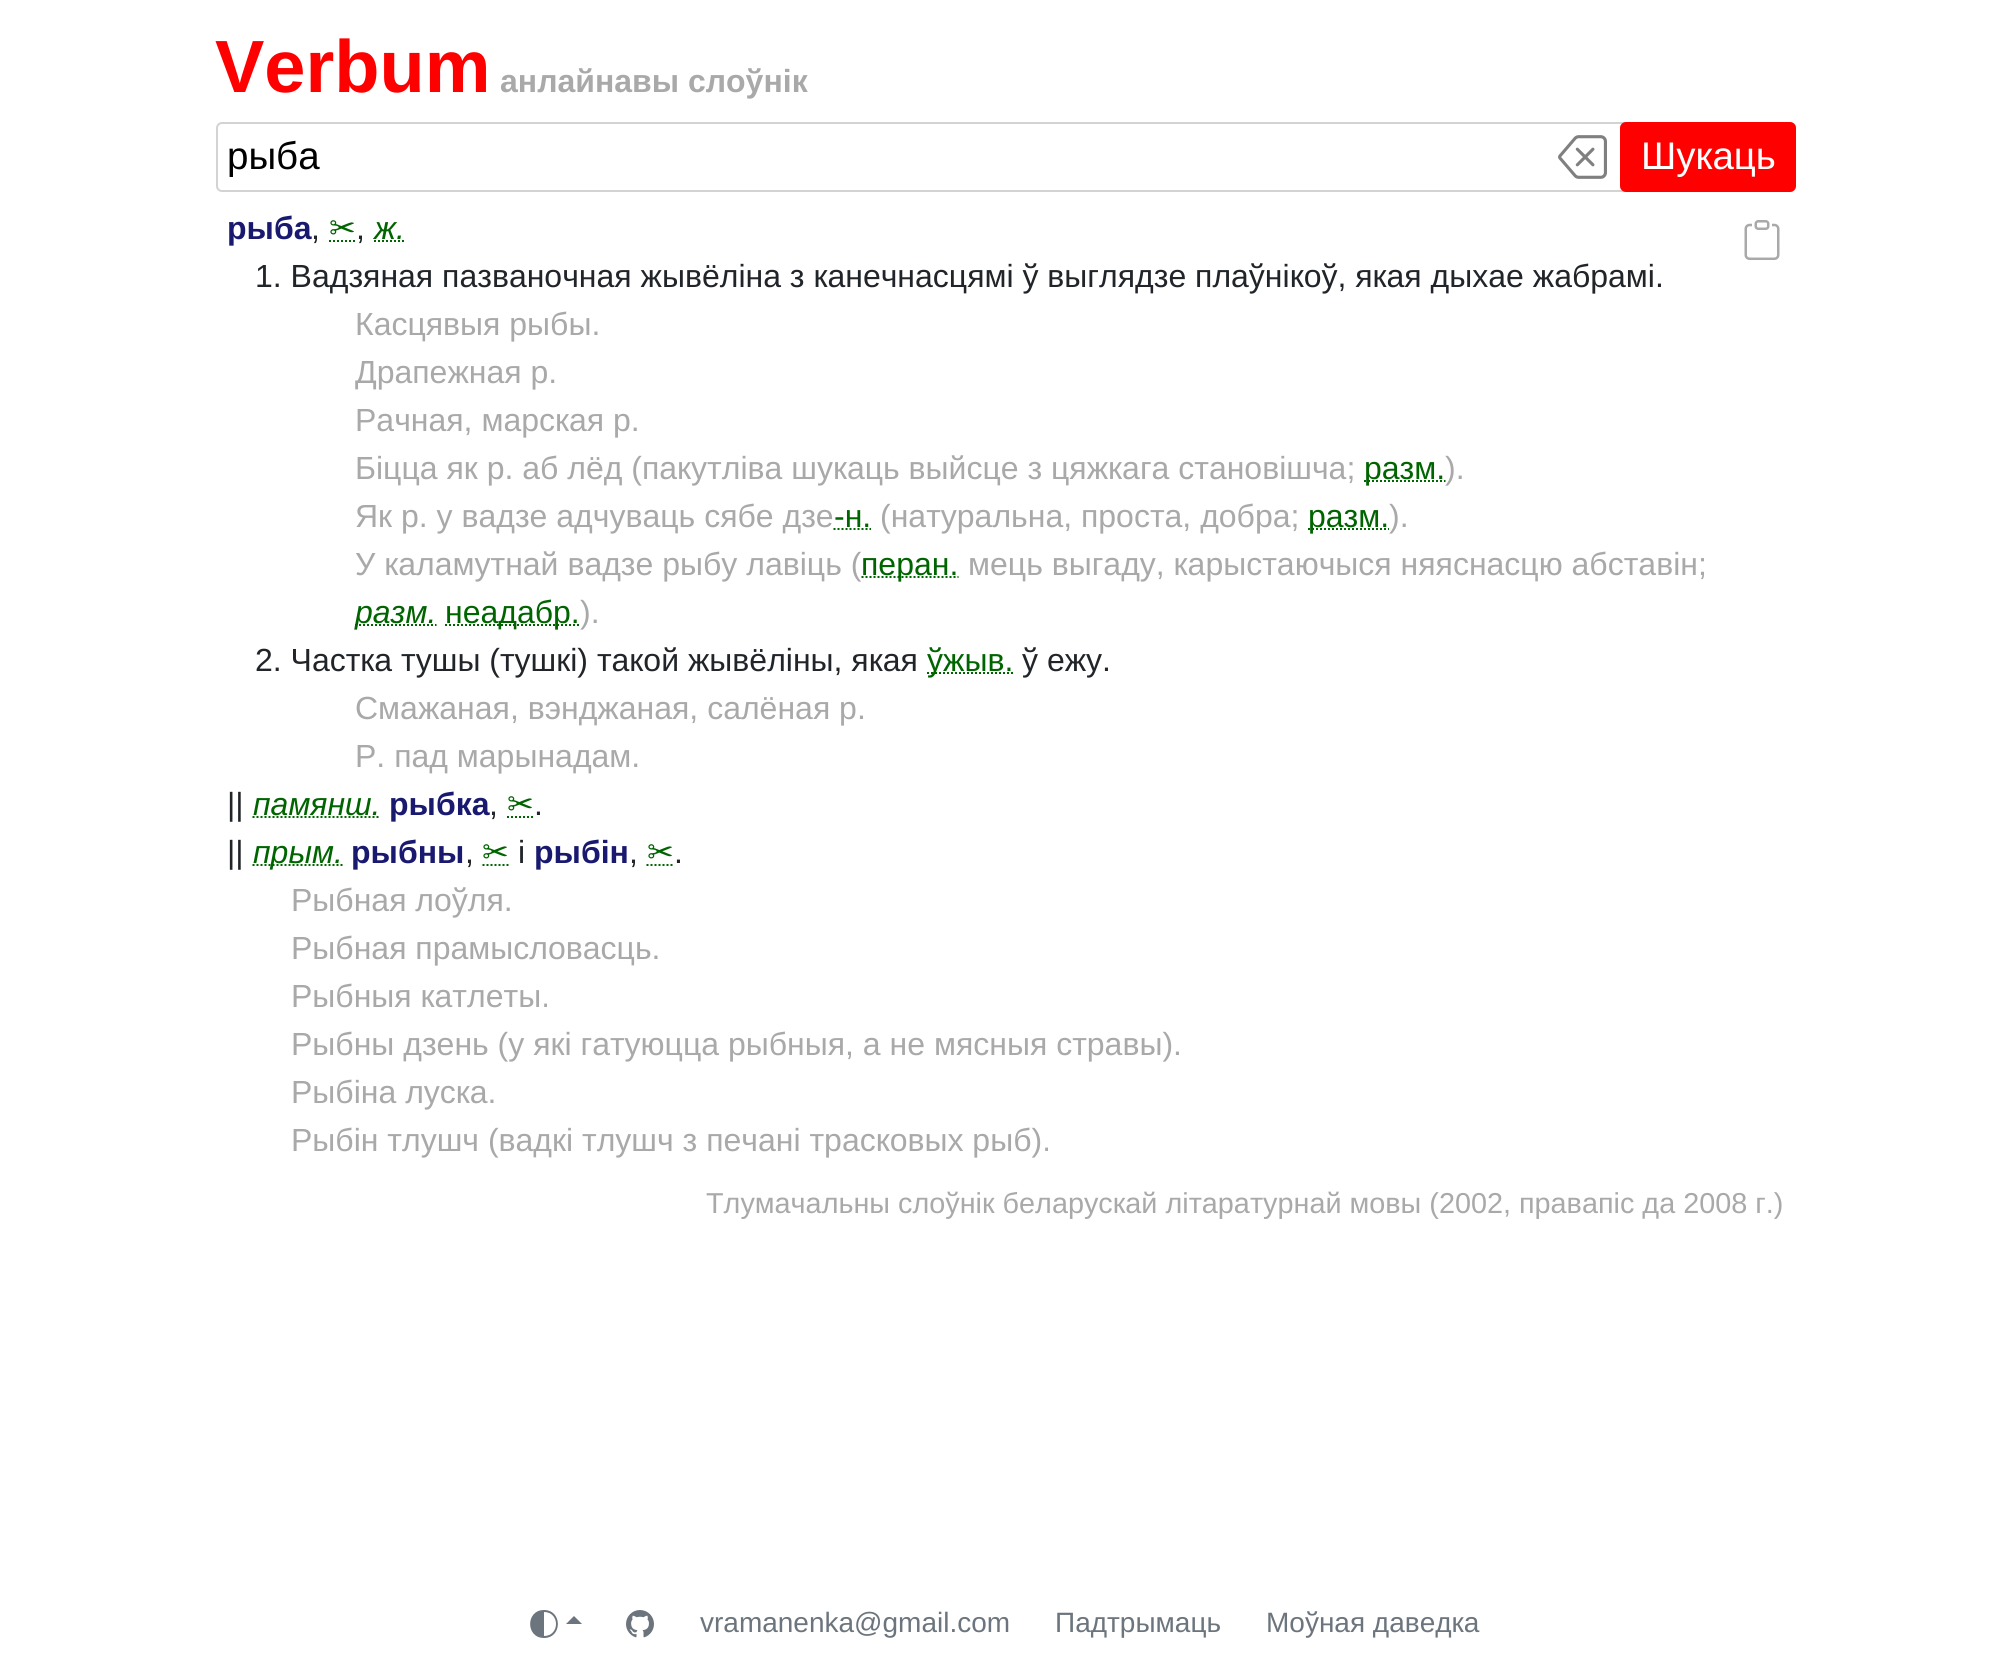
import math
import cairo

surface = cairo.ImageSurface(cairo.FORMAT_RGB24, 2010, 1664)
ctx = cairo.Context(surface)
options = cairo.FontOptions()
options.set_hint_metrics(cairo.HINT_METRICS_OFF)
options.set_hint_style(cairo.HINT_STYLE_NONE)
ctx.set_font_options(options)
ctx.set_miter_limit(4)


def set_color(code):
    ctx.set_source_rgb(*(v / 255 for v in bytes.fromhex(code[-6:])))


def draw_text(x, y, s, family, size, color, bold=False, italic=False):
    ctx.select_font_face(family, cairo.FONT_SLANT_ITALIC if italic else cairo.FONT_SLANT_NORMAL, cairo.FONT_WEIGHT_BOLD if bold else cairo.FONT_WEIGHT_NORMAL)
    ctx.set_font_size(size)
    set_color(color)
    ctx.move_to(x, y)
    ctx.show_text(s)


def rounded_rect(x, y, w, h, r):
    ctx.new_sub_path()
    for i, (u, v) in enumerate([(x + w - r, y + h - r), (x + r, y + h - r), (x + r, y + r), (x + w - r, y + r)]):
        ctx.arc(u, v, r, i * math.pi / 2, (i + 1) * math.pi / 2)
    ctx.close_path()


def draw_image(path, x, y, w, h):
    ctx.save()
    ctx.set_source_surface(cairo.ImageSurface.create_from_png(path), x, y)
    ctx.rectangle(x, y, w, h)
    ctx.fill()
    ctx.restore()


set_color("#ffffff")
ctx.paint()
draw_text(215, 92, "Verbum", "Liberation Sans", 74, "#ff0000", bold=True)
draw_text(500, 92, "анлайнавы слоўнік", "Liberation Sans", 32, "#a9a9a9", bold=True)
rounded_rect(217, 123, 1578, 68, 5)
set_color("#d3d3d3")
ctx.stroke()
draw_text(227, 169, "рыба", "Liberation Sans", 38.5, "#000000")
draw_image("assets/img1.png", 1558, 135, 49, 44)
set_color("#ff0000")
rounded_rect(1620, 122, 176, 70, 6)
ctx.fill()
draw_text(1641, 169, "Шукаць", "Liberation Sans", 38.5, "#ffffff")
draw_text(227, 239, "рыба", "Liberation Sans", 32, "#191970", bold=True)
draw_text(311, 239, ",", "Liberation Sans", 32, "#212529")
draw_text(329, 239, "✂", "DejaVu Sans", 32, "#006400")
ctx.new_path()
ctx.move_to(329, 241)
ctx.line_to(356, 241)
ctx.set_dash([2, 2])
ctx.stroke()
draw_text(356, 239, ",", "Liberation Sans", 32, "#212529")
draw_text(374, 239, "ж.", "Liberation Sans", 32, "#006400", italic=True)
ctx.new_path()
ctx.move_to(374, 241)
ctx.line_to(404.5, 241)
ctx.stroke()
draw_text(255, 287, "1. Вадзяная пазваночная жывёліна з канечнасцямі ў выглядзе плаўнікоў, якая дыхае жабрамі.", "Liberation Sans", 32, "#212529")
draw_text(355, 335, "Касцявыя рыбы.", "Liberation Sans", 32, "#a9a9a9")
draw_text(355, 383, "Драпежная р.", "Liberation Sans", 32, "#a9a9a9")
draw_text(355, 431, "Рачная, марская р.", "Liberation Sans", 32, "#a9a9a9")
draw_text(355, 479, "Біцца як р. аб лёд (пакутліва шукаць выйсце з цяжкага становішча;", "Liberation Sans", 32, "#a9a9a9")
ctx.new_path()
ctx.move_to(1364, 481)
ctx.line_to(1445.5, 481)
set_color("#006400")
ctx.stroke()
draw_text(1364, 479, "разм.", "Liberation Sans", 32, "#006400")
draw_text(1445, 479, ").", "Liberation Sans", 32, "#a9a9a9")
draw_text(355, 527, "Як р. у вадзе адчуваць сябе дзе", "Liberation Sans", 32, "#a9a9a9")
draw_text(834, 527, "-н.", "Liberation Sans", 32, "#006400")
ctx.new_path()
ctx.move_to(833.5, 529)
ctx.line_to(871, 529)
ctx.stroke()
draw_text(880, 527, "(натуральна, проста, добра;", "Liberation Sans", 32, "#a9a9a9")
ctx.new_path()
ctx.move_to(1308, 529)
ctx.line_to(1389, 529)
set_color("#006400")
ctx.stroke()
draw_text(1308, 527, "разм.", "Liberation Sans", 32, "#006400")
draw_text(1389, 527, ").", "Liberation Sans", 32, "#a9a9a9")
draw_text(355, 575, "У каламутнай вадзе рыбу лавіць (", "Liberation Sans", 32, "#a9a9a9")
ctx.new_path()
ctx.move_to(861.5, 577)
ctx.line_to(958.5, 577)
set_color("#006400")
ctx.stroke()
draw_text(861, 575, "перан.", "Liberation Sans", 32, "#006400")
draw_text(968, 575, "мець выгаду, карыстаючыся няяснасцю абставін;", "Liberation Sans", 32, "#a9a9a9")
ctx.new_path()
ctx.move_to(355, 625)
ctx.line_to(436.5, 625)
set_color("#006400")
ctx.stroke()
draw_text(355, 623, "разм.", "Liberation Sans", 32, "#006400", italic=True)
ctx.new_path()
ctx.move_to(445, 625)
ctx.line_to(580, 625)
ctx.stroke()
draw_text(445, 623, "неадабр.", "Liberation Sans", 32, "#006400")
draw_text(580, 623, ").", "Liberation Sans", 32, "#a9a9a9")
draw_text(255, 671, "2. Частка тушы (тушкі) такой жывёліны, якая", "Liberation Sans", 32, "#212529")
ctx.new_path()
ctx.move_to(927, 673)
ctx.line_to(1013.5, 673)
set_color("#006400")
ctx.stroke()
draw_text(927, 671, "ўжыв.", "Liberation Sans", 32, "#006400")
draw_text(1022, 671, "ў ежу.", "Liberation Sans", 32, "#212529")
draw_text(355, 719, "Смажаная, вэнджаная, салёная р.", "Liberation Sans", 32, "#a9a9a9")
draw_text(355, 767, "Р. пад марынадам.", "Liberation Sans", 32, "#a9a9a9")
draw_text(227, 815, "||", "Liberation Sans", 32, "#212529")
draw_text(253, 815, "памянш.", "Liberation Sans", 32, "#006400", italic=True)
ctx.new_path()
ctx.move_to(252.5, 817)
ctx.line_to(380, 817)
ctx.stroke()
draw_text(389, 815, "рыбка", "Liberation Sans", 32, "#191970", bold=True)
draw_text(489, 815, ",", "Liberation Sans", 32, "#212529")
draw_text(507, 815, "✂", "DejaVu Sans", 32, "#006400")
ctx.new_path()
ctx.move_to(507, 817)
ctx.line_to(534, 817)
ctx.stroke()
draw_text(534, 815, ".", "Liberation Sans", 32, "#212529")
draw_text(227, 863, "||", "Liberation Sans", 32, "#212529")
ctx.new_path()
ctx.move_to(252.5, 865)
ctx.line_to(342.5, 865)
set_color("#006400")
ctx.stroke()
draw_text(253, 863, "прым.", "Liberation Sans", 32, "#006400", italic=True)
draw_text(351, 863, "рыбны", "Liberation Sans", 32, "#191970", bold=True)
draw_text(465, 863, ",", "Liberation Sans", 32, "#212529")
draw_text(482, 863, "✂", "DejaVu Sans", 32, "#006400")
ctx.new_path()
ctx.move_to(482.5, 865)
ctx.line_to(509, 865)
ctx.stroke()
draw_text(518, 863, "і", "Liberation Sans", 32, "#212529")
draw_text(534, 863, "рыбін", "Liberation Sans", 32, "#191970", bold=True)
draw_text(629, 863, ",", "Liberation Sans", 32, "#212529")
draw_text(647, 863, "✂", "DejaVu Sans", 32, "#006400")
ctx.new_path()
ctx.move_to(646.5, 865)
ctx.line_to(673.5, 865)
ctx.stroke()
draw_text(674, 863, ".", "Liberation Sans", 32, "#212529")
draw_text(291, 911, "Рыбная лоўля.", "Liberation Sans", 32, "#a9a9a9")
draw_text(291, 959, "Рыбная прамысловасць.", "Liberation Sans", 32, "#a9a9a9")
draw_text(291, 1007, "Рыбныя катлеты.", "Liberation Sans", 32, "#a9a9a9")
draw_text(291, 1055, "Рыбны дзень (у які гатуюцца рыбныя, а не мясныя стравы).", "Liberation Sans", 32, "#a9a9a9")
draw_text(291, 1103, "Рыбіна луска.", "Liberation Sans", 32, "#a9a9a9")
draw_text(291, 1151, "Рыбін тлушч (вадкі тлушч з печані трасковых рыб).", "Liberation Sans", 32, "#a9a9a9")
draw_image("assets/img2.png", 1744, 220, 36, 40)
draw_text(706, 1213, "Тлумачальны слоўнік беларускай літаратурнай мовы (2002, правапіс да 2008 г.)", "Liberation Sans", 28.8, "#a9a9a9")
set_color("#6c757d")
ctx.new_path()
ctx.move_to(582, 1624)
ctx.line_to(566, 1624)
ctx.line_to(574, 1616)
ctx.close_path()
ctx.move_to(544, 1636)
ctx.curve_to(560, 1636, 560, 1612, 544, 1612)
ctx.close_path()
ctx.move_to(544, 1638)
ctx.curve_to(525.5, 1638, 525.5, 1610, 544, 1610)
ctx.curve_to(562.5, 1610, 562.5, 1638, 544, 1638)
ctx.fill()
draw_image("assets/img3.png", 626, 1610, 28, 28)
draw_text(700, 1632, "vramanenka@gmail.com", "Liberation Sans", 28, "#6c757d")
draw_text(1055, 1632, "Падтрымаць", "Liberation Sans", 28, "#6c757d")
draw_text(1266, 1632, "Моўная даведка", "Liberation Sans", 28, "#6c757d")
surface.write_to_png("output.png")
